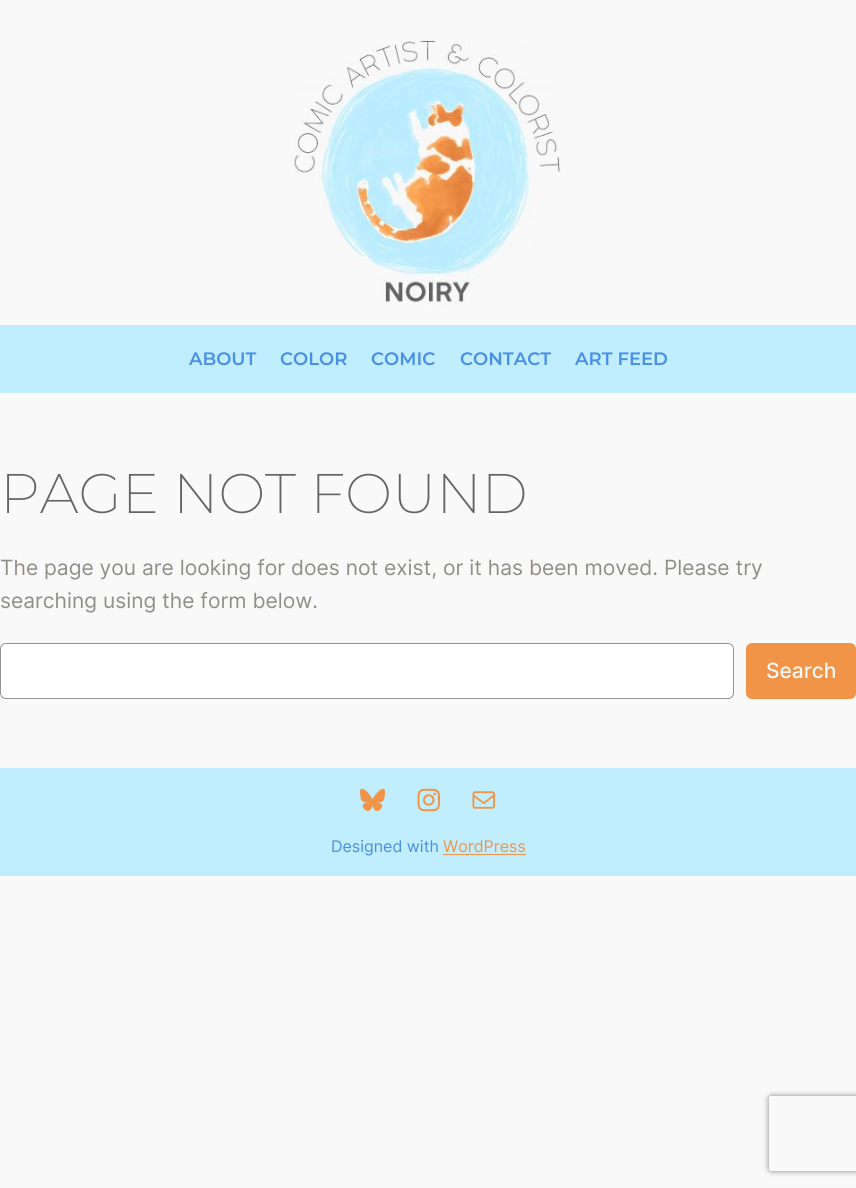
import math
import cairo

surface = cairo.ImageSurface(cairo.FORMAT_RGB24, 856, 1188)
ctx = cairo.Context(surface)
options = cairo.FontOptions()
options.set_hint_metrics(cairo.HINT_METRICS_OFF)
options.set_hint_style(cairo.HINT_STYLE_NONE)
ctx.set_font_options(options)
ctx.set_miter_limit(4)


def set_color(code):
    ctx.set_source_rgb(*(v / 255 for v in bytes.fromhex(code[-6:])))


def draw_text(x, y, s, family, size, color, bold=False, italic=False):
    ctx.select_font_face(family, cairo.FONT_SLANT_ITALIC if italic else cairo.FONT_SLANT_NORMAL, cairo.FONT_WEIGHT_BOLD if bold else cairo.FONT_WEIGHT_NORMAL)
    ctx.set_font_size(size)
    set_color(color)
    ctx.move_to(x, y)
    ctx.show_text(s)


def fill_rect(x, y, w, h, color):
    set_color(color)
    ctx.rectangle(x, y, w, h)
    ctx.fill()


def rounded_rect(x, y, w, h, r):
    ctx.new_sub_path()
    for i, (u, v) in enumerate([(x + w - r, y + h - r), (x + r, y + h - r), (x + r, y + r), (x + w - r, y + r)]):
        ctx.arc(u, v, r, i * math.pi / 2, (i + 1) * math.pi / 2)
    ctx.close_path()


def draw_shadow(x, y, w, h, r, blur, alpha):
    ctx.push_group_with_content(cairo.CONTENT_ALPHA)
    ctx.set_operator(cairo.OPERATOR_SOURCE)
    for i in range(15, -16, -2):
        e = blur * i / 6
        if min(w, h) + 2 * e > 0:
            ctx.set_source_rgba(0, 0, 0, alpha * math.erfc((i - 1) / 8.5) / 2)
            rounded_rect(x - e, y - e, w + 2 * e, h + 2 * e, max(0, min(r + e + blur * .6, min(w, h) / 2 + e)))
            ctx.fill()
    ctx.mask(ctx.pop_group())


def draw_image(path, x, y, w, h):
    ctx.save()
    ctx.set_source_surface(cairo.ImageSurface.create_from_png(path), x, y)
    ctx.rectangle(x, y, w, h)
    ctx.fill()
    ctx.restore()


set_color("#f9f9f9")
ctx.paint()
draw_image("assets/img1.png", 294, 40, 267, 265)
fill_rect(0, 325, 856, 68, "#c0eefe")
draw_text(189, 365, "ABOUT", "Montserrat SemiBold", 18, "#498fe4")
draw_text(280, 365, "COLOR", "Montserrat SemiBold", 18, "#498fe4")
draw_text(371, 365, "COMIC", "Montserrat SemiBold", 18, "#498fe4")
draw_text(460, 365, "CONTACT", "Montserrat SemiBold", 18, "#498fe4")
draw_text(575, 365, "ART FEED", "Montserrat SemiBold", 18, "#498fe4")
draw_text(0, 513, "PAGE NOT FOUND", "Montserrat ExtraLight", 55.75, "#646464")
draw_text(0, 575, "The page you are looking for does not exist, or it has been moved. Please try", "Inter", 21, "#908f87")
draw_text(0, 608, "searching using the form below.", "Inter", 21, "#908f87")
set_color("#ffffff")
rounded_rect(0.5, 643.5, 733, 55, 5.5)
ctx.fill_preserve()
set_color("#949494")
ctx.set_line_width(1)
ctx.stroke()
set_color("#f19447")
rounded_rect(746, 643, 110, 56, 6)
ctx.fill()
draw_text(766, 678, "Search", "Inter Medium", 21, "#f9f9f9")
fill_rect(0, 768, 856, 108, "#c0eefe")
draw_image("assets/img2.png", 360, 788, 25, 23)
draw_image("assets/img3.png", 417, 788, 23, 24)
draw_image("assets/img4.png", 472, 791, 23, 18)
draw_text(331, 852, "Designed with", "Inter", 16, "#498fe4")
draw_text(443, 852, "WordPress", "Inter", 16, "#f19447")
fill_rect(443, 854, 83, 1, "#f19447")
ctx.save()
ctx.set_fill_rule(cairo.FILL_RULE_EVEN_ODD)
ctx.new_path()
ctx.move_to(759, 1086)
ctx.line_to(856, 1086)
ctx.line_to(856, 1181)
ctx.line_to(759, 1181)
ctx.close_path()
ctx.move_to(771.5, 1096)
ctx.line_to(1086.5, 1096)
ctx.curve_to(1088, 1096, 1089, 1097, 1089, 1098.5)
ctx.line_to(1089, 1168.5)
ctx.curve_to(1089, 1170, 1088, 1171, 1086.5, 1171)
ctx.line_to(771.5, 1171)
ctx.curve_to(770, 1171, 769, 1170, 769, 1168.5)
ctx.line_to(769, 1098.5)
ctx.curve_to(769, 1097, 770, 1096, 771.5, 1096)
ctx.close_path()
ctx.clip()
set_color("#808080")
draw_shadow(769, 1096, 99, 75, 2.5, 3, 1)
ctx.restore()
surface.write_to_png("output.png")
